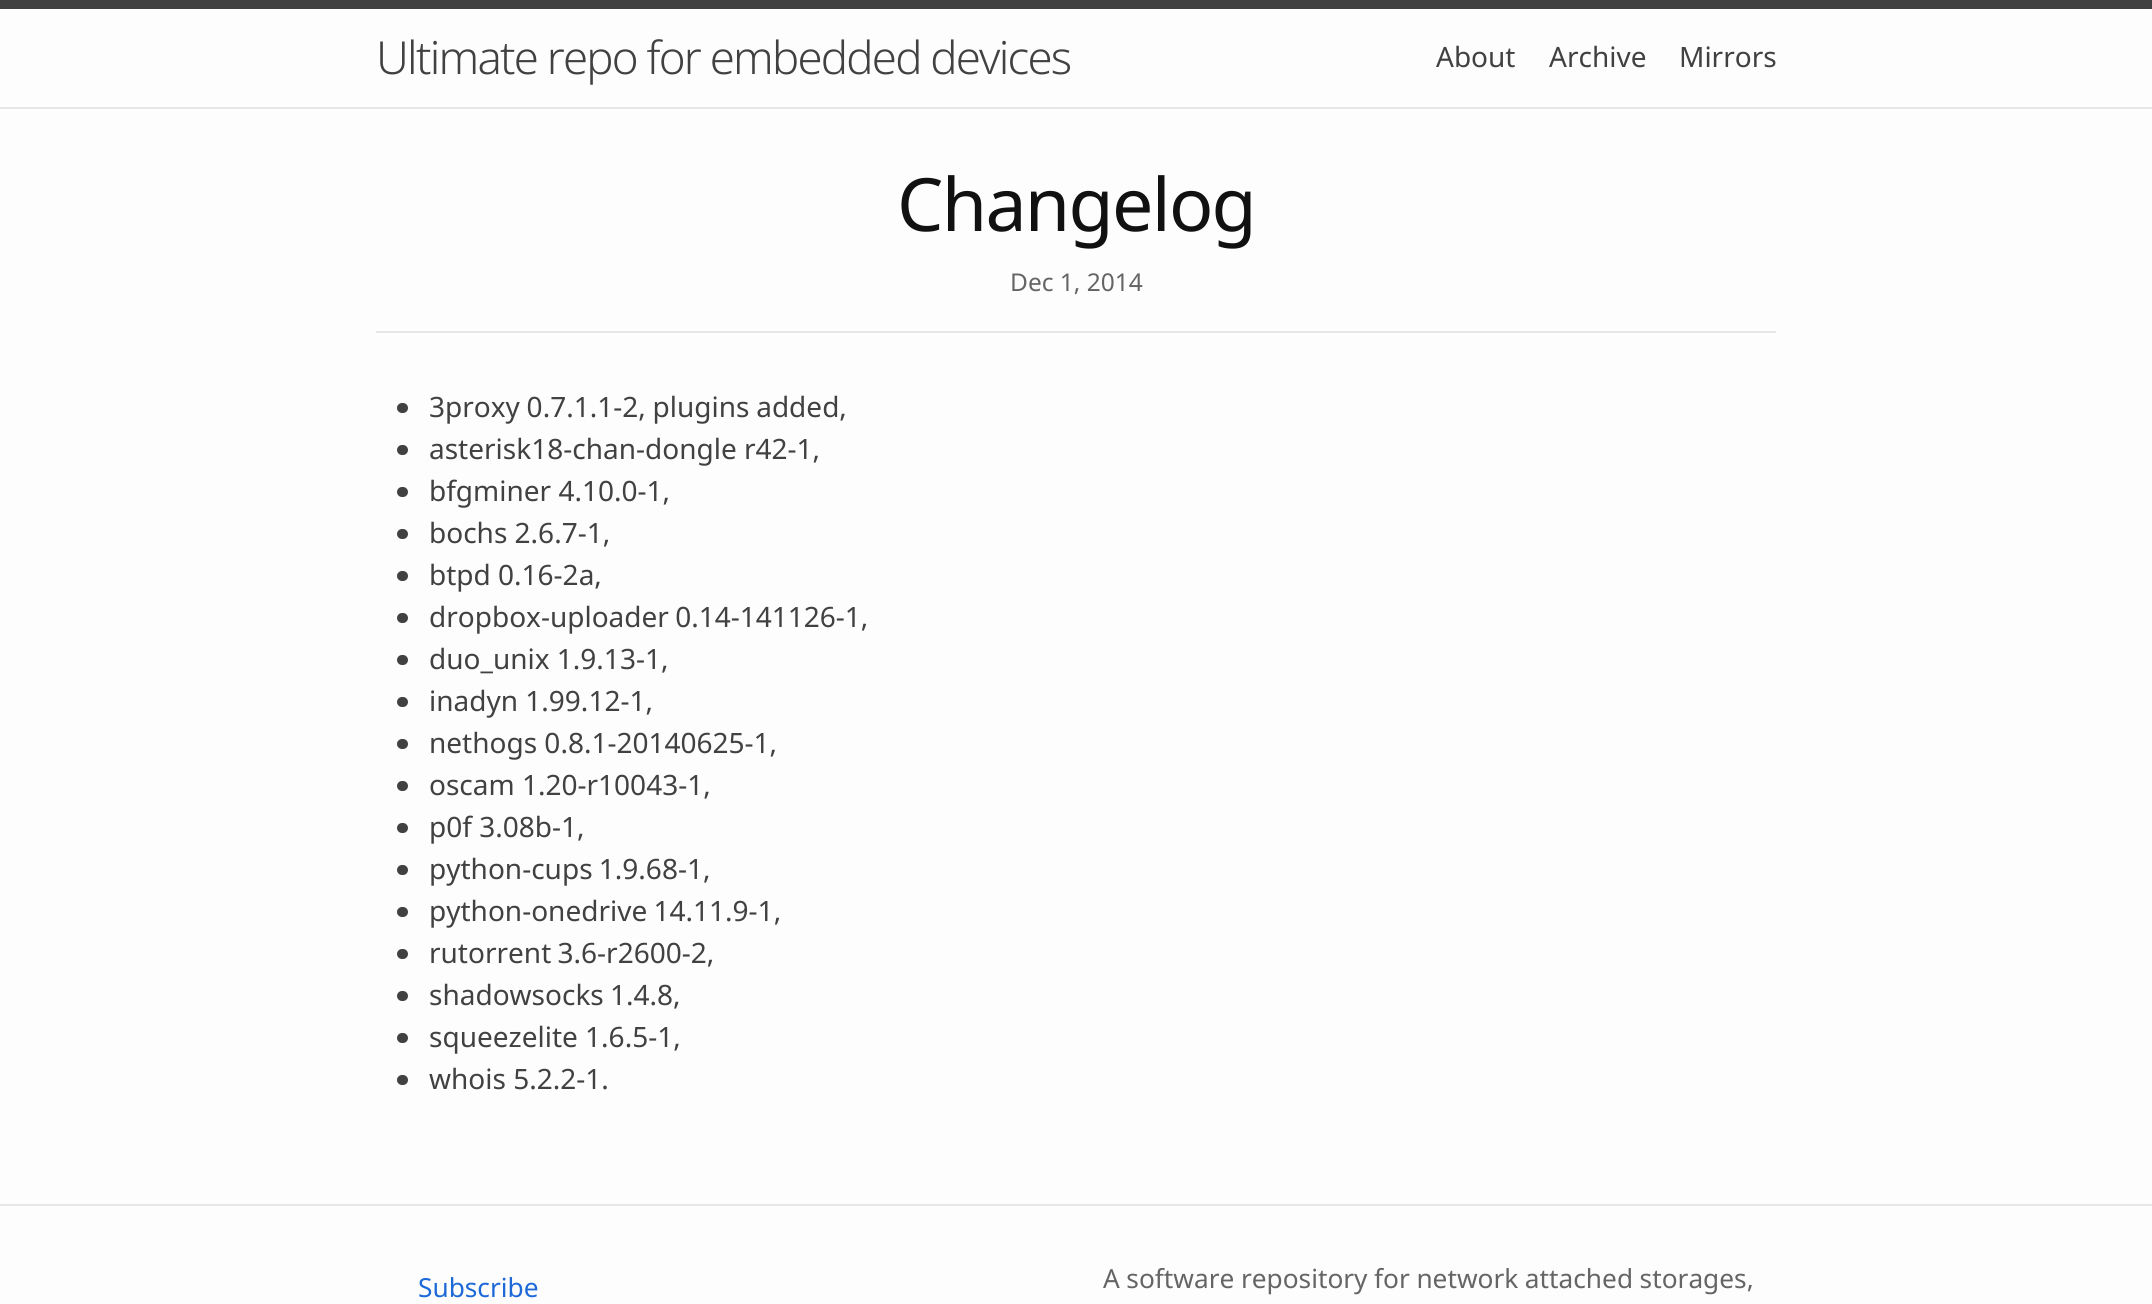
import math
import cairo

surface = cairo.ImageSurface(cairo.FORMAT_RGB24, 2152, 1304)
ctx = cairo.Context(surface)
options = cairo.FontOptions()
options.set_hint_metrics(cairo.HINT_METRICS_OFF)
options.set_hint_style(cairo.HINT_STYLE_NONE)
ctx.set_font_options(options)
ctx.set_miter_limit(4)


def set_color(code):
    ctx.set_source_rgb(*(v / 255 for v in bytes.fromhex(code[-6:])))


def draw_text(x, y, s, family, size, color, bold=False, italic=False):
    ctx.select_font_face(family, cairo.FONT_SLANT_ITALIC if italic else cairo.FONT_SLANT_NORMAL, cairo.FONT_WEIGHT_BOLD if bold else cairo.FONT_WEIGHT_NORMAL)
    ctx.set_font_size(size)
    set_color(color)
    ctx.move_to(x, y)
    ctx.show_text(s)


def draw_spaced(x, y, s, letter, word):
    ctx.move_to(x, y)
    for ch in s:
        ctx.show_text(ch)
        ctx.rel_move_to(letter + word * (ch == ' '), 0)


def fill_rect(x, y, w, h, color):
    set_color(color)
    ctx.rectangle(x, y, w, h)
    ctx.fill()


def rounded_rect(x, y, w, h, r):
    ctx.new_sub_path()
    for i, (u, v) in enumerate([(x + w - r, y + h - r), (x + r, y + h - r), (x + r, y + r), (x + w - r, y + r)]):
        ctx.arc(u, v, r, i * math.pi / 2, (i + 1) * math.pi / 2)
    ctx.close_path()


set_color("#fdfdfd")
ctx.paint()
fill_rect(0, 0, 2152, 9, "#414141")
fill_rect(0, 107, 2152, 2, "#e7e7e7")
ctx.select_font_face("Noto Sans Light")
ctx.set_font_size(45.5)
set_color("#414141")
draw_spaced(376, 74, "Ultimate repo for embedded devices", -1.75, -0.5)
draw_text(1436, 67, "About", "Noto Sans", 28, "#414141")
draw_text(1549, 67, "Archive", "Noto Sans", 28, "#414141")
draw_text(1679, 67, "Mirrors", "Noto Sans", 28, "#414141")
fill_rect(376, 331, 1400, 2, "#e7e7e7")
ctx.set_font_size(73.5)
set_color("#111111")
draw_spaced(897, 231, "Changelog", -1.75, 0)
draw_text(1010, 291, "Dec 1, 2014", "Noto Sans", 24.5, "#656565")
set_color("#414141")
rounded_rect(397, 403, 11, 10, 5)
ctx.fill()
ctx.set_font_size(28)
draw_spaced(429, 417, "3proxy 0.7.1.1-2, plugins added,", 0, -0.5)
rounded_rect(397, 445, 11, 10, 5)
ctx.fill()
draw_text(429, 459, "asterisk18-chan-dongle r42-1,", "Noto Sans", 28, "#414141")
rounded_rect(397, 487, 11, 10, 5)
ctx.fill()
draw_text(429, 501, "bfgminer 4.10.0-1,", "Noto Sans", 28, "#414141")
rounded_rect(397, 529, 11, 10, 5)
ctx.fill()
draw_text(429, 543, "bochs 2.6.7-1,", "Noto Sans", 28, "#414141")
rounded_rect(397, 571, 11, 10, 5)
ctx.fill()
draw_text(429, 585, "btpd 0.16-2a,", "Noto Sans", 28, "#414141")
rounded_rect(397, 613, 11, 10, 5)
ctx.fill()
draw_spaced(429, 627, "dropbox-uploader 0.14-141126-1,", 0, -1)
rounded_rect(397, 655, 11, 10, 5)
ctx.fill()
draw_text(429, 669, "duo_unix 1.9.13-1,", "Noto Sans", 28, "#414141")
rounded_rect(397, 697, 11, 10, 5)
ctx.fill()
draw_text(429, 711, "inadyn 1.99.12-1,", "Noto Sans", 28, "#414141")
rounded_rect(397, 739, 11, 10, 5)
ctx.fill()
draw_text(429, 753, "nethogs 0.8.1-20140625-1,", "Noto Sans", 28, "#414141")
rounded_rect(397, 781, 11, 10, 5)
ctx.fill()
draw_text(429, 795, "oscam 1.20-r10043-1,", "Noto Sans", 28, "#414141")
rounded_rect(397, 823, 11, 10, 5)
ctx.fill()
draw_text(429, 837, "p0f 3.08b-1,", "Noto Sans", 28, "#414141")
rounded_rect(397, 865, 11, 10, 5)
ctx.fill()
draw_spaced(429, 879, "python-cups 1.9.68-1,", 0, -1)
rounded_rect(397, 907, 11, 10, 5)
ctx.fill()
draw_spaced(429, 921, "python-onedrive 14.11.9-1,", 0, -1)
rounded_rect(397, 949, 11, 10, 5)
ctx.fill()
draw_spaced(429, 963, "rutorrent 3.6-r2600-2,", 0, -1)
rounded_rect(397, 991, 11, 10, 5)
ctx.fill()
draw_spaced(429, 1005, "shadowsocks 1.4.8,", 0, -1)
rounded_rect(397, 1033, 11, 10, 5)
ctx.fill()
draw_text(429, 1047, "squeezelite 1.6.5-1,", "Noto Sans", 28, "#414141")
rounded_rect(397, 1075, 11, 10, 5)
ctx.fill()
draw_text(429, 1089, "whois 5.2.2-1.", "Noto Sans", 28, "#414141")
fill_rect(0, 1204, 2152, 2, "#e7e7e7")
draw_text(418, 1297, "Subscribe", "Noto Sans", 26.25, "#1e69d8")
set_color("#656565")
draw_spaced(1103, 1288, "A software repository for network attached storages,", 0, -0.25)
surface.write_to_png("output.png")
